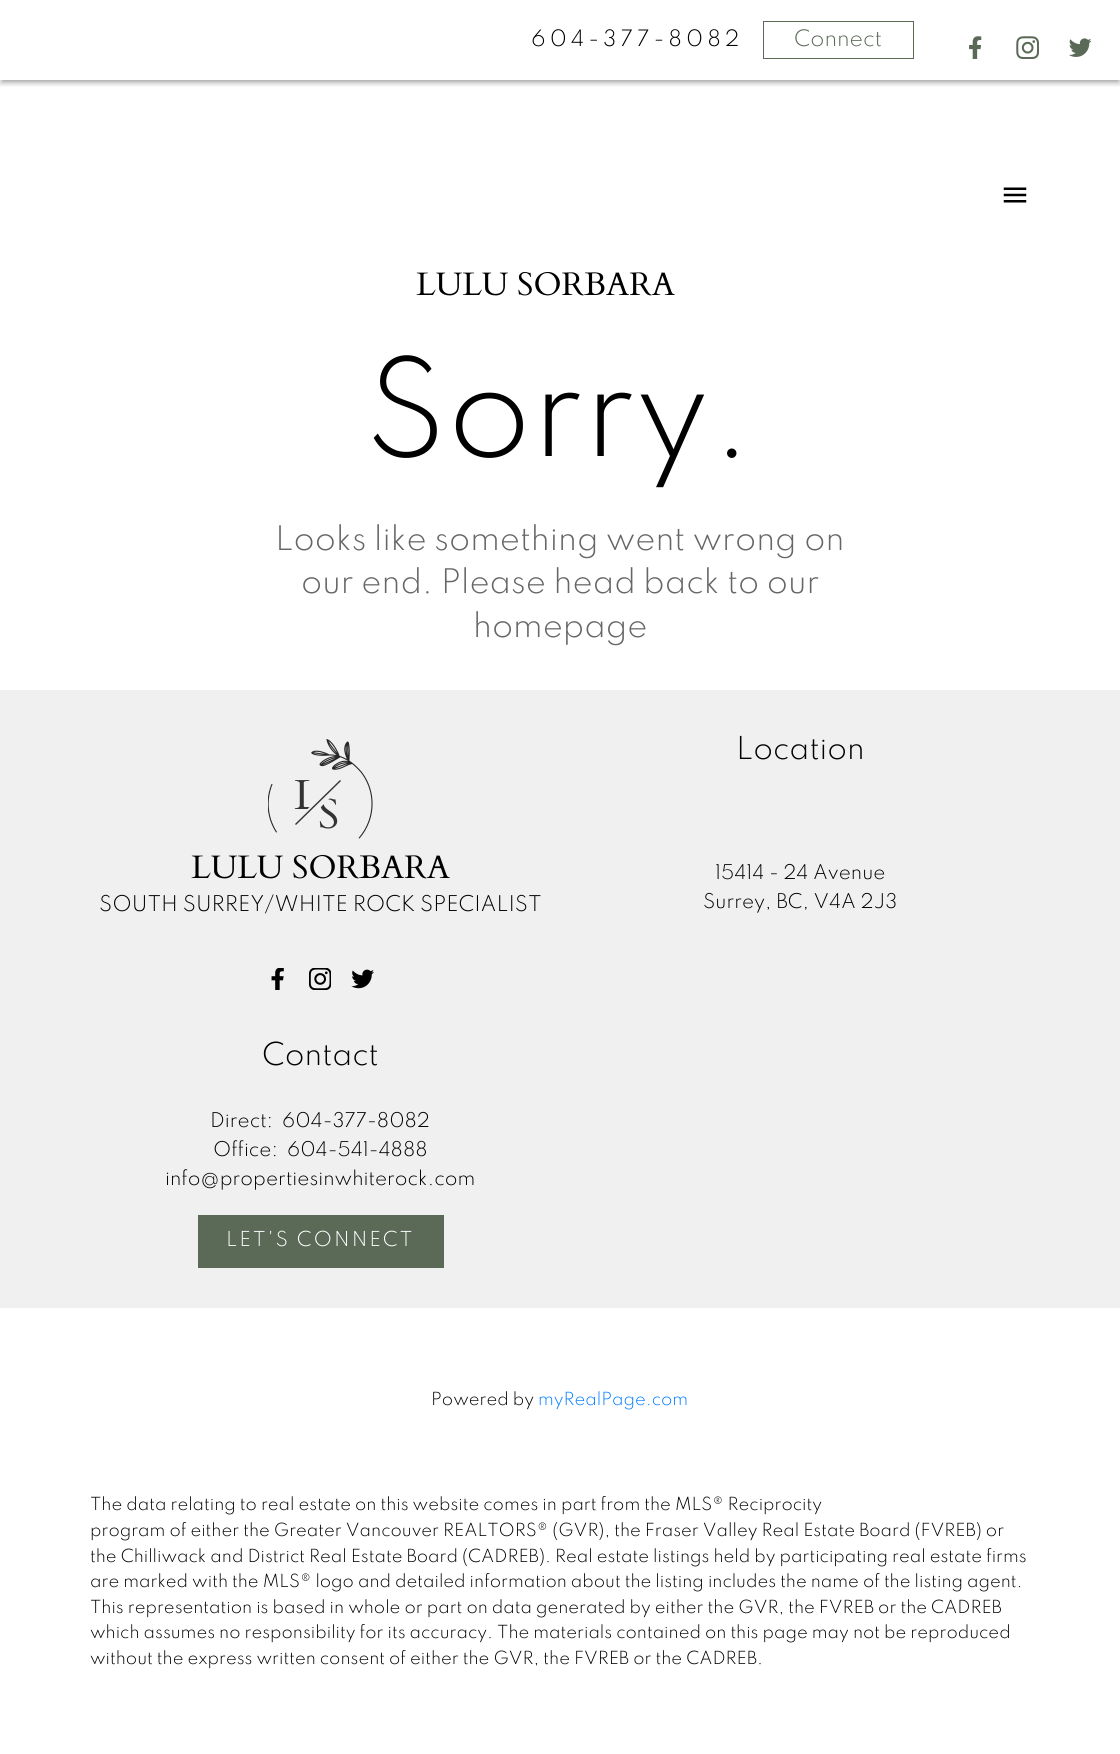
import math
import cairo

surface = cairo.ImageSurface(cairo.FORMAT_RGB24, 1120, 1754)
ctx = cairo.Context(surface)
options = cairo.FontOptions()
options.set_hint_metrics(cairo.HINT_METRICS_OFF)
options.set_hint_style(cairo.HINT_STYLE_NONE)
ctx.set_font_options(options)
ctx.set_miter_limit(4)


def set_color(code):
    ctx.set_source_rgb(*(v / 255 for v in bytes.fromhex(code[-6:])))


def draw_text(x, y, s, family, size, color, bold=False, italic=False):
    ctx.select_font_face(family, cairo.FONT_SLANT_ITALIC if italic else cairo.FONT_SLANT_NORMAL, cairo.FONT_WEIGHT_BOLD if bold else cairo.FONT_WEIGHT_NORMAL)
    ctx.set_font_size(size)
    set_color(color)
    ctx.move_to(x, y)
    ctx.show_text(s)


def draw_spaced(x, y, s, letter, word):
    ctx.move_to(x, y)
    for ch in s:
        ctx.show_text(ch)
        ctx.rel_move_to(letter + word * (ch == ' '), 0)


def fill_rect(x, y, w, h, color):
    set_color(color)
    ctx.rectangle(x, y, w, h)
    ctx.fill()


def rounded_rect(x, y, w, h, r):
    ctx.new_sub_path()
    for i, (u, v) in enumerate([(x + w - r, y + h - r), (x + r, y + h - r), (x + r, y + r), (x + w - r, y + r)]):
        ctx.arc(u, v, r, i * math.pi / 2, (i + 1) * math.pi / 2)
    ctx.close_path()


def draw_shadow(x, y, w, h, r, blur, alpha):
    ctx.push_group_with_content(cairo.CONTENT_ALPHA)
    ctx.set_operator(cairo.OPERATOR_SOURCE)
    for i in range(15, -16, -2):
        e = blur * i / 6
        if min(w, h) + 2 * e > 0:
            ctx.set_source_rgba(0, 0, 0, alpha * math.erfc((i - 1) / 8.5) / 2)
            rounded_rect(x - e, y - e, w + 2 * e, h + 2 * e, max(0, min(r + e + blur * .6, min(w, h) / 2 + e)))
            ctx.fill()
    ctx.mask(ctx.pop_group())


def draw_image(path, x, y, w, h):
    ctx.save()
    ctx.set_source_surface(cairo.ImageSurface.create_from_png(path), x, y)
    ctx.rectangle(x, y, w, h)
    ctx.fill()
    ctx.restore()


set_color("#ffffff")
ctx.paint()
ctx.save()
ctx.rectangle(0, 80, 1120, 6)
ctx.clip()
set_color("#000000")
draw_shadow(0, 1, 1120, 80, 0, 5, 0.12)
ctx.restore()
ctx.save()
ctx.rectangle(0, 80, 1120, 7)
ctx.clip()
set_color("#000000")
draw_shadow(0, 4, 1120, 80, 0, 2.5, 0.14)
ctx.restore()
ctx.save()
ctx.rectangle(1, 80, 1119, 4)
ctx.clip()
set_color("#000000")
draw_shadow(3, 6, 1115, 75, 0, 2, 0.2)
ctx.restore()
ctx.select_font_face("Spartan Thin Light")
ctx.set_font_size(20)
set_color("#000000")
draw_spaced(531, 46, "604-377-8082", 4, 0)
ctx.rectangle(763.5, 21.5, 150, 37)
set_color("#5b6a57")
ctx.set_line_width(1)
ctx.stroke()
draw_text(794, 46, "Connect", "Spartan Thin Light", 20, "#5b6a57")
draw_image("assets/img1.png", 969, 36, 13, 23)
draw_image("assets/img2.png", 1016, 36, 23, 23)
draw_image("assets/img3.png", 1069, 38, 23, 19)
draw_image("assets/img4.png", 1003, 187, 24, 16)
draw_text(416, 295, "LULU SORBARA", "Cardo", 32.5, "#000000")
draw_text(365, 456, "Sorry.", "Spartan Thin Light", 120, "#000000")
draw_text(275, 550, "Looks like something went wrong on", "Spartan Thin Light", 30, "#666666")
draw_text(301, 593, "our end. Please head back to our", "Spartan Thin Light", 30, "#666666")
draw_text(473, 637, "homepage", "Spartan Thin Light", 30, "#666666")
fill_rect(0, 690, 1120, 618, "#f0f0f0")
draw_image("assets/img5.png", 268, 739, 105, 100)
set_color("#333333")
ctx.new_path()
ctx.move_to(295, 824)
ctx.line_to(340, 780)
ctx.line_to(341, 781)
ctx.line_to(296, 825)
ctx.close_path()
ctx.fill()
ctx.save()
ctx.new_path()
ctx.move_to(268, 743.5)
ctx.line_to(373, 743.5)
ctx.line_to(268, 848.5)
ctx.close_path()
ctx.clip()
draw_text(294, 809, "L", "Cardo", 42, "#333333")
ctx.restore()
ctx.save()
ctx.new_path()
ctx.move_to(366.5, 866.5)
ctx.line_to(366.5, 761.5)
ctx.line_to(261.5, 866.5)
ctx.close_path()
ctx.clip()
draw_text(318, 828, "S", "Cardo", 42, "#333333")
ctx.restore()
draw_text(191, 878, "LULU SORBARA", "Cardo", 32.5, "#000000")
draw_text(99, 911, "SOUTH SURREY/WHITE ROCK SPECIALIST", "Spartan Thin Light", 19.25, "#000000")
draw_image("assets/img6.png", 271, 968, 13, 22)
draw_image("assets/img7.png", 309, 968, 22, 22)
draw_image("assets/img8.png", 351, 969, 23, 20)
draw_text(736, 759, "Location", "Spartan Thin Light", 28, "#000000")
draw_text(715, 879, "15414 - 24 Avenue", "Spartan Thin Light", 18, "#000000")
draw_text(703, 908, "Surrey, BC, V4A 2J3", "Spartan Thin Light", 18, "#000000")
draw_text(262, 1065, "Contact", "Spartan Thin Light", 28, "#000000")
draw_text(210, 1127, "Direct:", "Spartan Thin Light", 18, "#000000")
draw_text(282, 1127, "604-377-8082", "Spartan Thin Light", 18, "#000000")
draw_text(213, 1156, "Office:", "Spartan Thin Light", 18, "#000000")
draw_text(287, 1156, "604-541-4888", "Spartan Thin Light", 18, "#000000")
draw_text(165, 1185, "info@propertiesinwhiterock.com", "Spartan Thin Light", 18, "#000000")
fill_rect(198, 1215, 246, 53, "#5b6a57")
ctx.set_font_size(18.25)
set_color("#ffffff")
draw_spaced(226, 1246, "LET'S CONNECT", 2, 0)
draw_text(431, 1405, "Powered by", "Spartan Thin Light", 16, "#000000")
draw_text(538, 1405, "myRealPage.com", "Spartan Thin Light", 16, "#007bff")
draw_text(90, 1510, "The data relating to real estate on this website comes in part from the MLS® Reciprocity", "Spartan Thin Light", 16, "#000000")
draw_text(90, 1536, "program of either the Greater Vancouver REALTORS® (GVR), the Fraser Valley Real Estate Board (FVREB) or", "Spartan Thin Light", 16, "#000000")
draw_text(90, 1562, "the Chilliwack and District Real Estate Board (CADREB). Real estate listings held by participating real estate firms", "Spartan Thin Light", 16, "#000000")
draw_text(90, 1587, "are marked with the MLS® logo and detailed information about the listing includes the name of the listing agent.", "Spartan Thin Light", 16, "#000000")
draw_text(90, 1613, "This representation is based in whole or part on data generated by either the GVR, the FVREB or the CADREB", "Spartan Thin Light", 16, "#000000")
draw_text(90, 1638, "which assumes no responsibility for its accuracy. The materials contained on this page may not be reproduced", "Spartan Thin Light", 16, "#000000")
draw_text(90, 1664, "without the express written consent of either the GVR, the FVREB or the CADREB.", "Spartan Thin Light", 16, "#000000")
surface.write_to_png("output.png")
